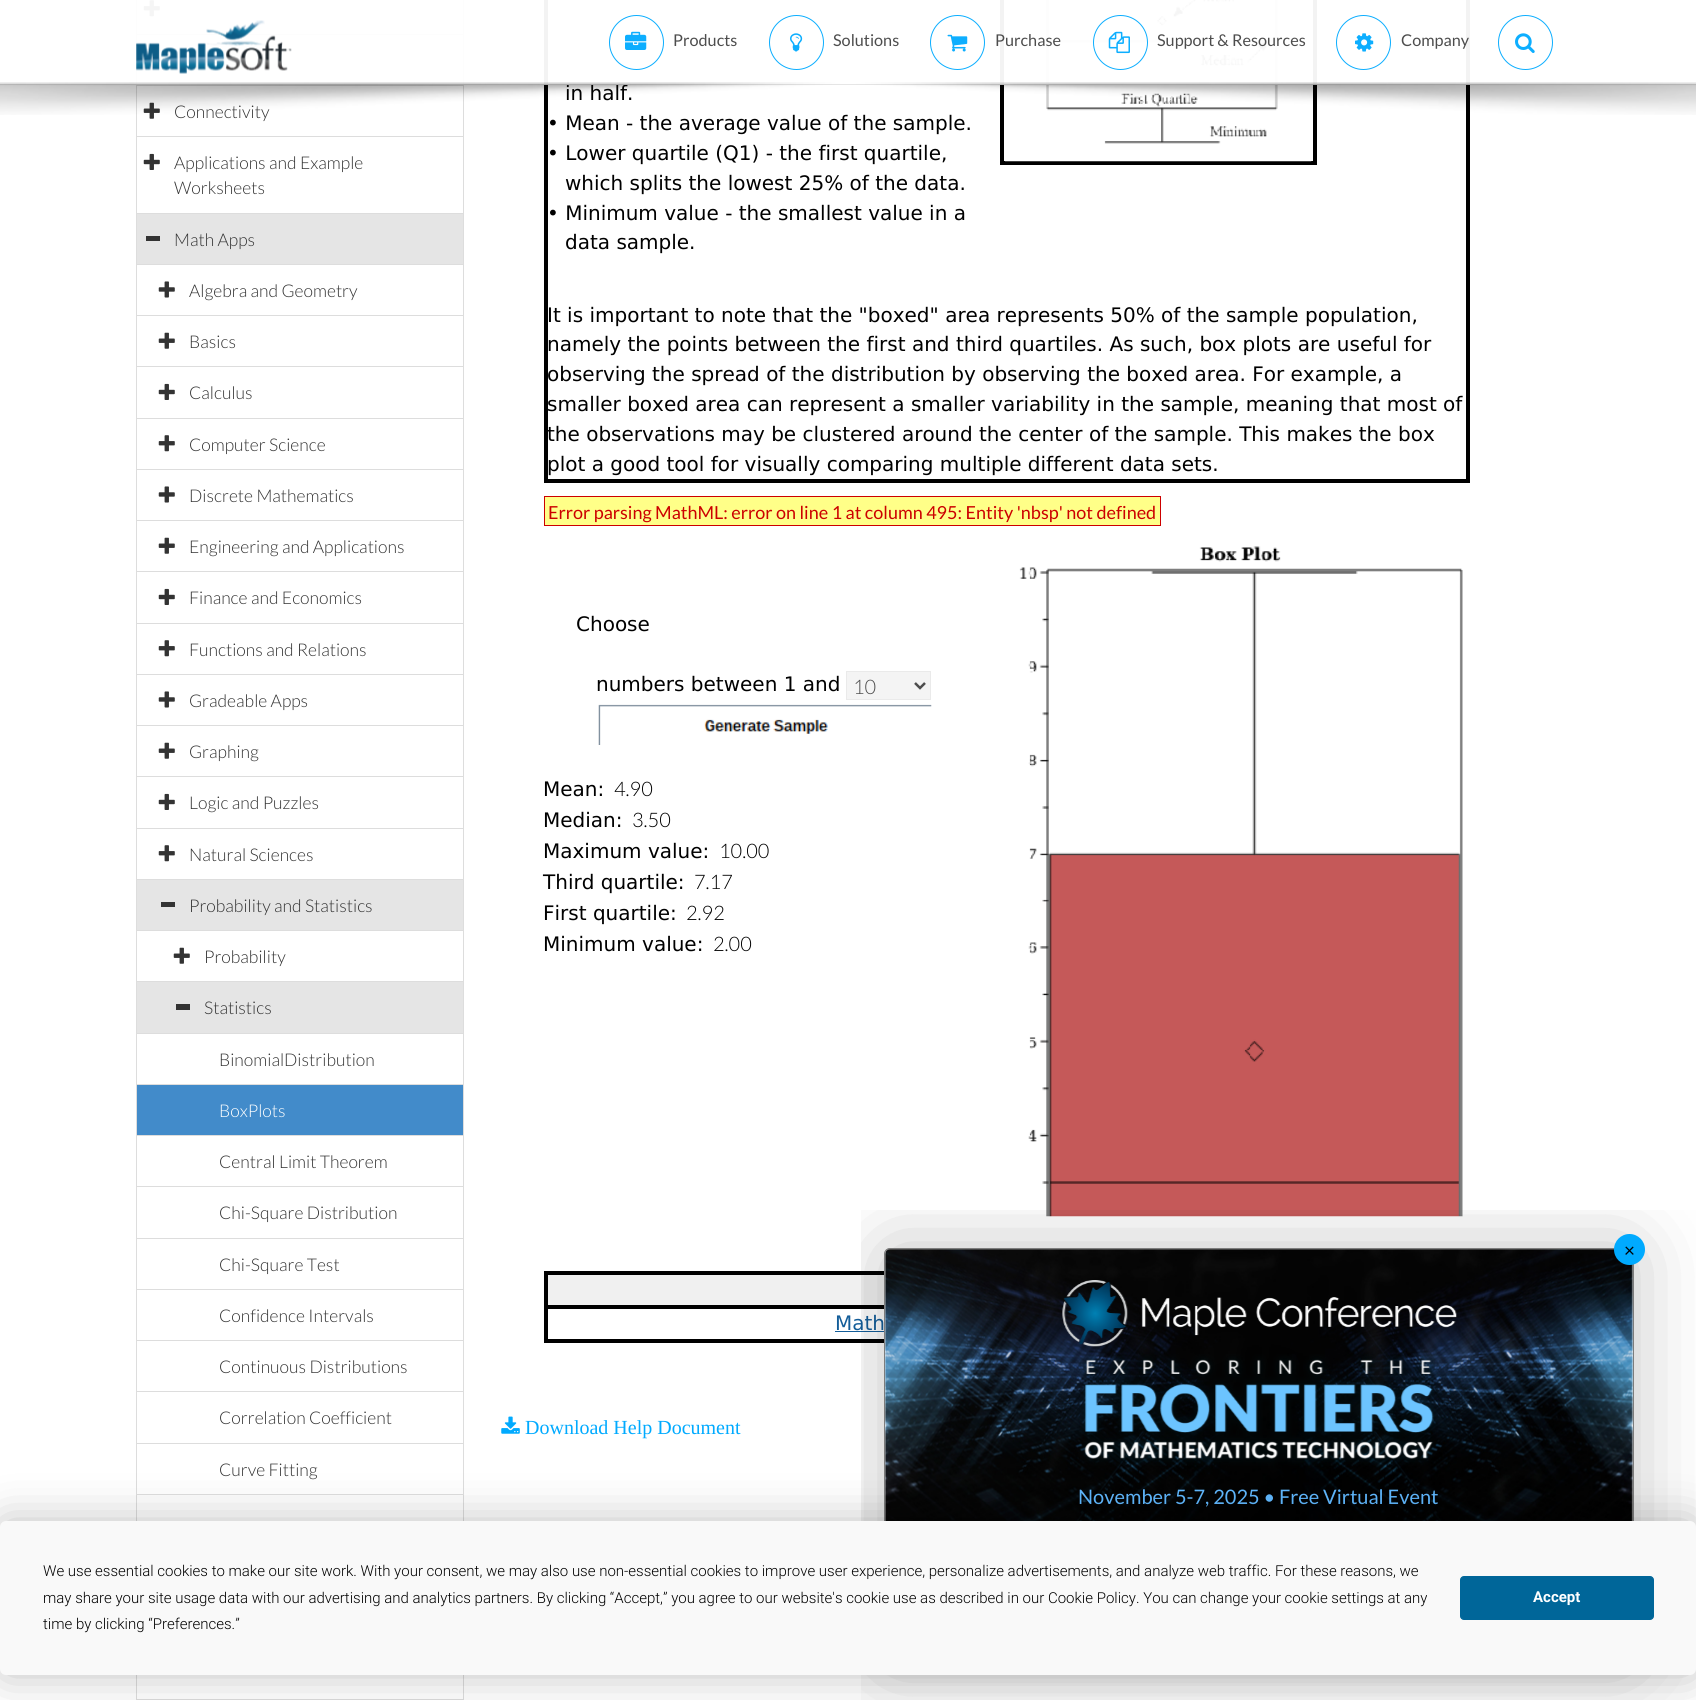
import math
import cairo

surface = cairo.ImageSurface(cairo.FORMAT_RGB24, 1696, 1700)
ctx = cairo.Context(surface)
options = cairo.FontOptions()
options.set_hint_metrics(cairo.HINT_METRICS_OFF)
options.set_hint_style(cairo.HINT_STYLE_NONE)
ctx.set_font_options(options)
ctx.set_miter_limit(4)


def set_color(code):
    ctx.set_source_rgb(*(v / 255 for v in bytes.fromhex(code[-6:])))


def draw_text(x, y, s, family, size, color, bold=False, italic=False):
    ctx.select_font_face(family, cairo.FONT_SLANT_ITALIC if italic else cairo.FONT_SLANT_NORMAL, cairo.FONT_WEIGHT_BOLD if bold else cairo.FONT_WEIGHT_NORMAL)
    ctx.set_font_size(size)
    set_color(color)
    ctx.move_to(x, y)
    ctx.show_text(s)


def fill_rect(x, y, w, h, color):
    set_color(color)
    ctx.rectangle(x, y, w, h)
    ctx.fill()


def rounded_rect(x, y, w, h, r):
    ctx.new_sub_path()
    for i, (u, v) in enumerate([(x + w - r, y + h - r), (x + r, y + h - r), (x + r, y + r), (x + w - r, y + r)]):
        ctx.arc(u, v, r, i * math.pi / 2, (i + 1) * math.pi / 2)
    ctx.close_path()


def draw_shadow(x, y, w, h, r, blur, alpha):
    ctx.push_group_with_content(cairo.CONTENT_ALPHA)
    ctx.set_operator(cairo.OPERATOR_SOURCE)
    for i in range(15, -16, -2):
        e = blur * i / 6
        if min(w, h) + 2 * e > 0:
            ctx.set_source_rgba(0, 0, 0, alpha * math.erfc((i - 1) / 8.5) / 2)
            rounded_rect(x - e, y - e, w + 2 * e, h + 2 * e, max(0, min(r + e + blur * .6, min(w, h) / 2 + e)))
            ctx.fill()
    ctx.mask(ctx.pop_group())


def draw_image(path, x, y, w, h):
    ctx.save()
    ctx.set_source_surface(cairo.ImageSurface.create_from_png(path), x, y)
    ctx.rectangle(x, y, w, h)
    ctx.fill()
    ctx.restore()


set_color("#ffffff")
ctx.paint()
ctx.rectangle(136.5, -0.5, 327, 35)
set_color("#dddddd")
ctx.set_line_width(1)
ctx.stroke()
draw_image("assets/img9.png", 143, 0, 17, 17)
ctx.rectangle(136.5, 34.5, 327, 51)
ctx.stroke()
draw_image("assets/img10.png", 143, 51, 17, 17)
fill_rect(1466, 0, 4, 483, "#000000")
fill_rect(544, 479, 926, 4, "#000000")
fill_rect(544, 0, 4, 483, "#000000")
draw_text(565, 100, "in half.", "DejaVu Sans", 20, "#000000")
fill_rect(1313, 0, 4, 165, "#000000")
fill_rect(1000, 161, 316, 4, "#000000")
fill_rect(1000, 0, 4, 165, "#000000")
draw_image("assets/img13.png", 1005, 0, 307, 162)
ctx.set_source_rgba(1, 1, 1, 0.95)
ctx.rectangle(136, 0, 1334, 85)
ctx.fill()
ctx.set_source_rgba(0.898, 0.898, 0.898, 0.95)
ctx.rectangle(0, 84, 1696, 1)
ctx.fill()
draw_image("assets/img1.png", 136, 20, 156, 54)
ctx.arc(636.5, 42.5, 27, 0, 2 * math.pi)
ctx.set_source_rgba(0, 0.667, 1, 0.95)
ctx.stroke()
draw_image("assets/img2.png", 625, 31, 22, 19)
draw_text(673, 46, "Products", "Lato", 16.25, "#4d4d4d")
ctx.new_path()
ctx.arc(796.5, 42.5, 27, 0, 2 * math.pi)
ctx.set_source_rgba(0, 0.667, 1, 0.95)
ctx.stroke()
draw_image("assets/img3.png", 790, 33, 13, 19)
draw_text(833, 46, "Solutions", "Lato", 16.25, "#4d4d4d")
ctx.new_path()
ctx.arc(957.5, 42.5, 27, 0, 2 * math.pi)
ctx.set_source_rgba(0, 0.667, 1, 0.95)
ctx.stroke()
draw_image("assets/img4.png", 947, 34, 21, 18)
draw_text(995, 46, "Purchase", "Lato", 16.25, "#4d4d4d")
ctx.new_path()
ctx.arc(1120.5, 42.5, 27, 0, 2 * math.pi)
set_color("#0daeff")
ctx.stroke()
draw_image("assets/img5.png", 1108, 31, 22, 23)
draw_text(1157, 46, "Support & Resources", "Lato", 16.25, "#4d4d4d")
ctx.new_path()
ctx.arc(1363.5, 42.5, 27, 0, 2 * math.pi)
set_color("#0daeff")
ctx.stroke()
draw_image("assets/img6.png", 1355, 33, 19, 19)
draw_text(1401, 46, "Company", "Lato", 16.25, "#4d4d4d")
ctx.new_path()
ctx.arc(1525.5, 42.5, 27, 0, 2 * math.pi)
set_color("#0daeff")
ctx.stroke()
draw_image("assets/img7.png", 1515, 33, 20, 20)
ctx.rectangle(136.5, 85.5, 327, 52)
set_color("#dddddd")
ctx.stroke()
draw_image("assets/img11.png", 143, 102, 17, 17)
draw_text(174, 118, "Connectivity", "Lato Light", 17.5, "#333333")
draw_text(547, 130, "• Mean - the average value of the sample.", "DejaVu Sans", 20, "#000000")
draw_image("assets/img8.png", 0, 82, 1696, 33)
fill_rect(137, 137, 326, 1, "#ffffff")
ctx.rectangle(136.5, 136.5, 327, 77)
set_color("#dddddd")
ctx.stroke()
draw_image("assets/img12.png", 143, 153, 17, 17)
draw_text(174, 169, "Applications and Example", "Lato Light", 17.5, "#333333")
draw_text(174, 194, "Worksheets", "Lato Light", 17.5, "#333333")
set_color("#e5e5e5")
ctx.rectangle(136.5, 213.5, 327, 51)
ctx.fill_preserve()
set_color("#dddddd")
ctx.stroke()
fill_rect(146, 236, 14, 5, "#333333")
draw_text(174, 246, "Math Apps", "Lato Light", 17.5, "#333333")
ctx.rectangle(136.5, 264.5, 327, 51)
set_color("#dddddd")
ctx.stroke()
draw_image("assets/img10.png", 158, 281, 17, 17)
draw_text(189, 297, "Algebra and Geometry", "Lato Light", 17.5, "#333333")
ctx.rectangle(136.5, 315.5, 327, 52)
set_color("#dddddd")
ctx.stroke()
draw_image("assets/img11.png", 158, 332, 17, 17)
draw_text(189, 348, "Basics", "Lato Light", 17.5, "#333333")
fill_rect(137, 367, 326, 1, "#ffffff")
ctx.rectangle(136.5, 366.5, 327, 52)
set_color("#dddddd")
ctx.stroke()
draw_image("assets/img12.png", 158, 383, 17, 17)
draw_text(189, 399, "Calculus", "Lato Light", 17.5, "#333333")
ctx.rectangle(136.5, 418.5, 327, 51)
set_color("#dddddd")
ctx.stroke()
draw_image("assets/img9.png", 158, 435, 17, 17)
draw_text(189, 451, "Computer Science", "Lato Light", 17.5, "#333333")
ctx.rectangle(136.5, 469.5, 327, 51)
set_color("#dddddd")
ctx.stroke()
draw_image("assets/img10.png", 158, 486, 17, 17)
draw_text(189, 502, "Discrete Mathematics", "Lato Light", 17.5, "#333333")
ctx.rectangle(136.5, 520.5, 327, 52)
set_color("#dddddd")
ctx.stroke()
draw_image("assets/img11.png", 158, 537, 17, 17)
draw_text(189, 553, "Engineering and Applications", "Lato Light", 17.5, "#333333")
fill_rect(137, 572, 326, 1, "#ffffff")
ctx.rectangle(136.5, 571.5, 327, 52)
set_color("#dddddd")
ctx.stroke()
draw_image("assets/img12.png", 158, 588, 17, 17)
draw_text(189, 604, "Finance and Economics", "Lato Light", 17.5, "#333333")
ctx.rectangle(136.5, 623.5, 327, 51)
set_color("#dddddd")
ctx.stroke()
draw_image("assets/img9.png", 158, 640, 17, 17)
draw_text(189, 656, "Functions and Relations", "Lato Light", 17.5, "#333333")
ctx.rectangle(136.5, 674.5, 327, 51)
set_color("#dddddd")
ctx.stroke()
draw_image("assets/img10.png", 158, 691, 17, 17)
draw_text(189, 707, "Gradeable Apps", "Lato Light", 17.5, "#333333")
ctx.rectangle(136.5, 725.5, 327, 52)
set_color("#dddddd")
ctx.stroke()
draw_image("assets/img11.png", 158, 742, 17, 17)
draw_text(189, 758, "Graphing", "Lato Light", 17.5, "#333333")
fill_rect(137, 777, 326, 1, "#ffffff")
ctx.rectangle(136.5, 776.5, 327, 52)
set_color("#dddddd")
ctx.stroke()
draw_image("assets/img12.png", 158, 793, 17, 17)
draw_text(189, 809, "Logic and Puzzles", "Lato Light", 17.5, "#333333")
ctx.rectangle(136.5, 828.5, 327, 51)
set_color("#dddddd")
ctx.stroke()
draw_image("assets/img9.png", 158, 845, 17, 17)
draw_text(189, 861, "Natural Sciences", "Lato Light", 17.5, "#333333")
set_color("#e5e5e5")
ctx.rectangle(136.5, 879.5, 327, 51)
ctx.fill_preserve()
set_color("#dddddd")
ctx.stroke()
fill_rect(161, 902, 14, 5, "#333333")
draw_text(189, 912, "Probability and Statistics", "Lato Light", 17.5, "#333333")
ctx.rectangle(136.5, 930.5, 327, 52)
set_color("#dddddd")
ctx.stroke()
draw_image("assets/img11.png", 173, 947, 17, 17)
draw_text(204, 963, "Probability", "Lato Light", 17.5, "#333333")
set_color("#e5e5e5")
ctx.rectangle(136.5, 981.5, 327, 52)
ctx.fill_preserve()
set_color("#dddddd")
ctx.stroke()
fill_rect(176, 1004, 14, 6, "#333333")
draw_text(204, 1014, "Statistics", "Lato Light", 17.5, "#333333")
ctx.rectangle(136.5, 1033.5, 327, 51)
set_color("#dddddd")
ctx.stroke()
draw_text(219, 1066, "BinomialDistribution", "Lato Light", 17.5, "#333333")
set_color("#428bca")
ctx.rectangle(136.5, 1084.5, 327, 51)
ctx.fill_preserve()
set_color("#dddddd")
ctx.stroke()
draw_text(219, 1117, "BoxPlots", "Lato Light", 17.5, "#ffffff")
ctx.rectangle(136.5, 1135.5, 327, 52)
set_color("#dddddd")
ctx.stroke()
draw_text(219, 1168, "Central Limit Theorem", "Lato Light", 17.5, "#333333")
fill_rect(137, 1187, 326, 1, "#ffffff")
ctx.rectangle(136.5, 1186.5, 327, 52)
set_color("#dddddd")
ctx.stroke()
draw_text(219, 1219, "Chi-Square Distribution", "Lato Light", 17.5, "#333333")
ctx.rectangle(136.5, 1238.5, 327, 51)
set_color("#dddddd")
ctx.stroke()
draw_text(219, 1271, "Chi-Square Test", "Lato Light", 17.5, "#333333")
ctx.rectangle(136.5, 1289.5, 327, 51)
set_color("#dddddd")
ctx.stroke()
draw_text(219, 1322, "Confidence Intervals", "Lato Light", 17.5, "#333333")
ctx.rectangle(136.5, 1340.5, 327, 52)
set_color("#dddddd")
ctx.stroke()
draw_text(219, 1373, "Continuous Distributions", "Lato Light", 17.5, "#333333")
fill_rect(137, 1392, 326, 1, "#ffffff")
ctx.rectangle(136.5, 1391.5, 327, 52)
set_color("#dddddd")
ctx.stroke()
draw_text(219, 1424, "Correlation Coefficient", "Lato Light", 17.5, "#333333")
ctx.rectangle(136.5, 1443.5, 327, 51)
set_color("#dddddd")
ctx.stroke()
draw_text(219, 1476, "Curve Fitting", "Lato Light", 17.5, "#333333")
ctx.rectangle(136.5, 1494.5, 327, 51)
set_color("#dddddd")
ctx.stroke()
ctx.rectangle(136.5, 1648.5, 327, 51)
ctx.stroke()
draw_text(547, 160, "• Lower quartile (Q1) - the first quartile,", "DejaVu Sans", 20, "#000000")
draw_text(565, 190, "which splits the lowest 25% of the data.", "DejaVu Sans", 20, "#000000")
draw_text(547, 220, "• Minimum value - the smallest value in a", "DejaVu Sans", 20, "#000000")
draw_text(565, 249, "data sample.", "DejaVu Sans", 20, "#000000")
draw_text(547, 322, "It is important to note that the \"boxed\" area represents 50% of the sample population,", "DejaVu Sans", 20, "#000000")
draw_text(547, 351, "namely the points between the first and third quartiles. As such, box plots are useful for", "DejaVu Sans", 20, "#000000")
draw_text(547, 381, "observing the spread of the distribution by observing the boxed area. For example, a", "DejaVu Sans", 20, "#000000")
draw_text(547, 411, "smaller boxed area can represent a smaller variability in the sample, meaning that most of", "DejaVu Sans", 20, "#000000")
draw_text(547, 441, "the observations may be clustered around the center of the sample. This makes the box", "DejaVu Sans", 20, "#000000")
draw_text(547, 471, "plot a good tool for visually comparing multiple different data sets.", "DejaVu Sans", 20, "#000000")
set_color("#ffff88")
ctx.rectangle(544.5, 496.5, 616, 29)
ctx.fill_preserve()
set_color("#cc0000")
ctx.stroke()
draw_text(548, 519, "Error parsing MathML: error on line 1 at column 495: Entity 'nbsp' not defined", "Lato", 18, "#cc0000")
draw_text(576, 631, "Choose", "DejaVu Sans", 20, "#000000")
draw_text(596, 691, "numbers between 1 and", "DejaVu Sans", 20, "#000000")
set_color("#f4f4f4")
ctx.rectangle(846.5, 671.5, 84, 28)
ctx.fill_preserve()
set_color("#eaeaea")
ctx.stroke()
ctx.new_path()
ctx.move_to(915, 683)
ctx.line_to(920, 688)
ctx.line_to(925, 683)
set_color("#4d4d4d")
ctx.set_line_width(2.5)
ctx.stroke()
draw_text(853, 694, "10", "Lato Light", 20, "#4d4d4d")
draw_image("assets/img14.png", 598, 704, 334, 41)
draw_text(543, 796, "Mean:", "DejaVu Sans", 20, "#000000")
draw_text(614, 796, "4.90", "Lato Light", 20, "#000000")
draw_text(543, 827, "Median:", "DejaVu Sans", 20, "#000000")
draw_text(632, 827, "3.50", "Lato Light", 20, "#000000")
draw_text(543, 858, "Maximum value:", "DejaVu Sans", 20, "#000000")
draw_text(719, 858, "10.00", "Lato Light", 20, "#000000")
draw_text(543, 889, "Third quartile:", "DejaVu Sans", 20, "#000000")
draw_text(694, 889, "7.17", "Lato Light", 20, "#000000")
draw_text(543, 920, "First quartile:", "DejaVu Sans", 20, "#000000")
draw_text(686, 920, "2.92", "Lato Light", 20, "#000000")
draw_text(543, 951, "Minimum value:", "DejaVu Sans", 20, "#000000")
draw_text(713, 951, "2.00", "Lato Light", 20, "#000000")
draw_image("assets/img15.png", 1019, 546, 444, 671)
fill_rect(548, 1275, 336, 30, "#f0f0f0")
fill_rect(544, 1271, 340, 4, "#000000")
fill_rect(544, 1305, 340, 4, "#000000")
fill_rect(544, 1339, 340, 4, "#000000")
fill_rect(544, 1305, 4, 38, "#000000")
fill_rect(544, 1271, 4, 38, "#000000")
draw_text(835, 1330, "Math", "DejaVu Sans", 20, "#135d99")
fill_rect(835, 1331, 49, 1, "#135d99")
draw_image("assets/img16.png", 501, 1416, 19, 18)
draw_text(525, 1434, "Download Help Document", "Liberation Serif", 20, "#00aaff")
ctx.save()
ctx.rectangle(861, 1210, 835, 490)
ctx.clip()
set_color("#000000")
draw_shadow(884, 1248, 750, 415, 6, 40.5, 0.24)
ctx.restore()
set_color("#ffffff")
rounded_rect(885, 1249, 748, 412, 5)
ctx.fill()
draw_image("assets/img17.png", 884, 1248, 749, 273)
rounded_rect(884.5, 1248.5, 749, 414, 5.5)
set_color("#7d7d7d")
ctx.set_line_width(1)
ctx.stroke()
set_color("#00aaff")
ctx.arc(1629.5, 1249.5, 15.5, 0, 2 * math.pi)
ctx.fill()
draw_text(1624, 1257, "×", "Lato", 19, "#000000")
draw_image("assets/img18.png", 1062, 1280, 395, 67)
draw_image("assets/img19.png", 1078, 1354, 360, 112)
draw_text(1078, 1504, "November 5-7, 2025 • Free Virtual Event", "Lato", 20, "#60b8ff")
set_color("#000000")
draw_shadow(0, 1521, 1696, 154, 6, 22, 0.25)
set_color("#f9f9f9")
rounded_rect(0, 1521, 1696, 154, 6)
ctx.fill()
draw_text(43, 1576, "We use essential cookies to make our site work. With your consent, we may also use non-essential cookies to improve user experience, personalize advertisements, and analyze web traffic. For these reasons, we", "Roboto Light", 15, "#000000")
draw_text(43, 1603, "may share your site usage data with our advertising and analytics partners. By clicking “Accept,” you agree to our website's cookie use as described in our Cookie Policy. You can change your cookie settings at any", "Roboto Light", 15, "#000000")
draw_text(43, 1629, "time by clicking “Preferences.”", "Roboto Light", 15, "#000000")
set_color("#006699")
rounded_rect(1460.5, 1576.5, 193, 43, 3.5)
ctx.fill_preserve()
ctx.stroke()
draw_text(1533, 1602, "Accept", "Roboto", 15, "#ffffff", bold=True)
surface.write_to_png("output.png")
